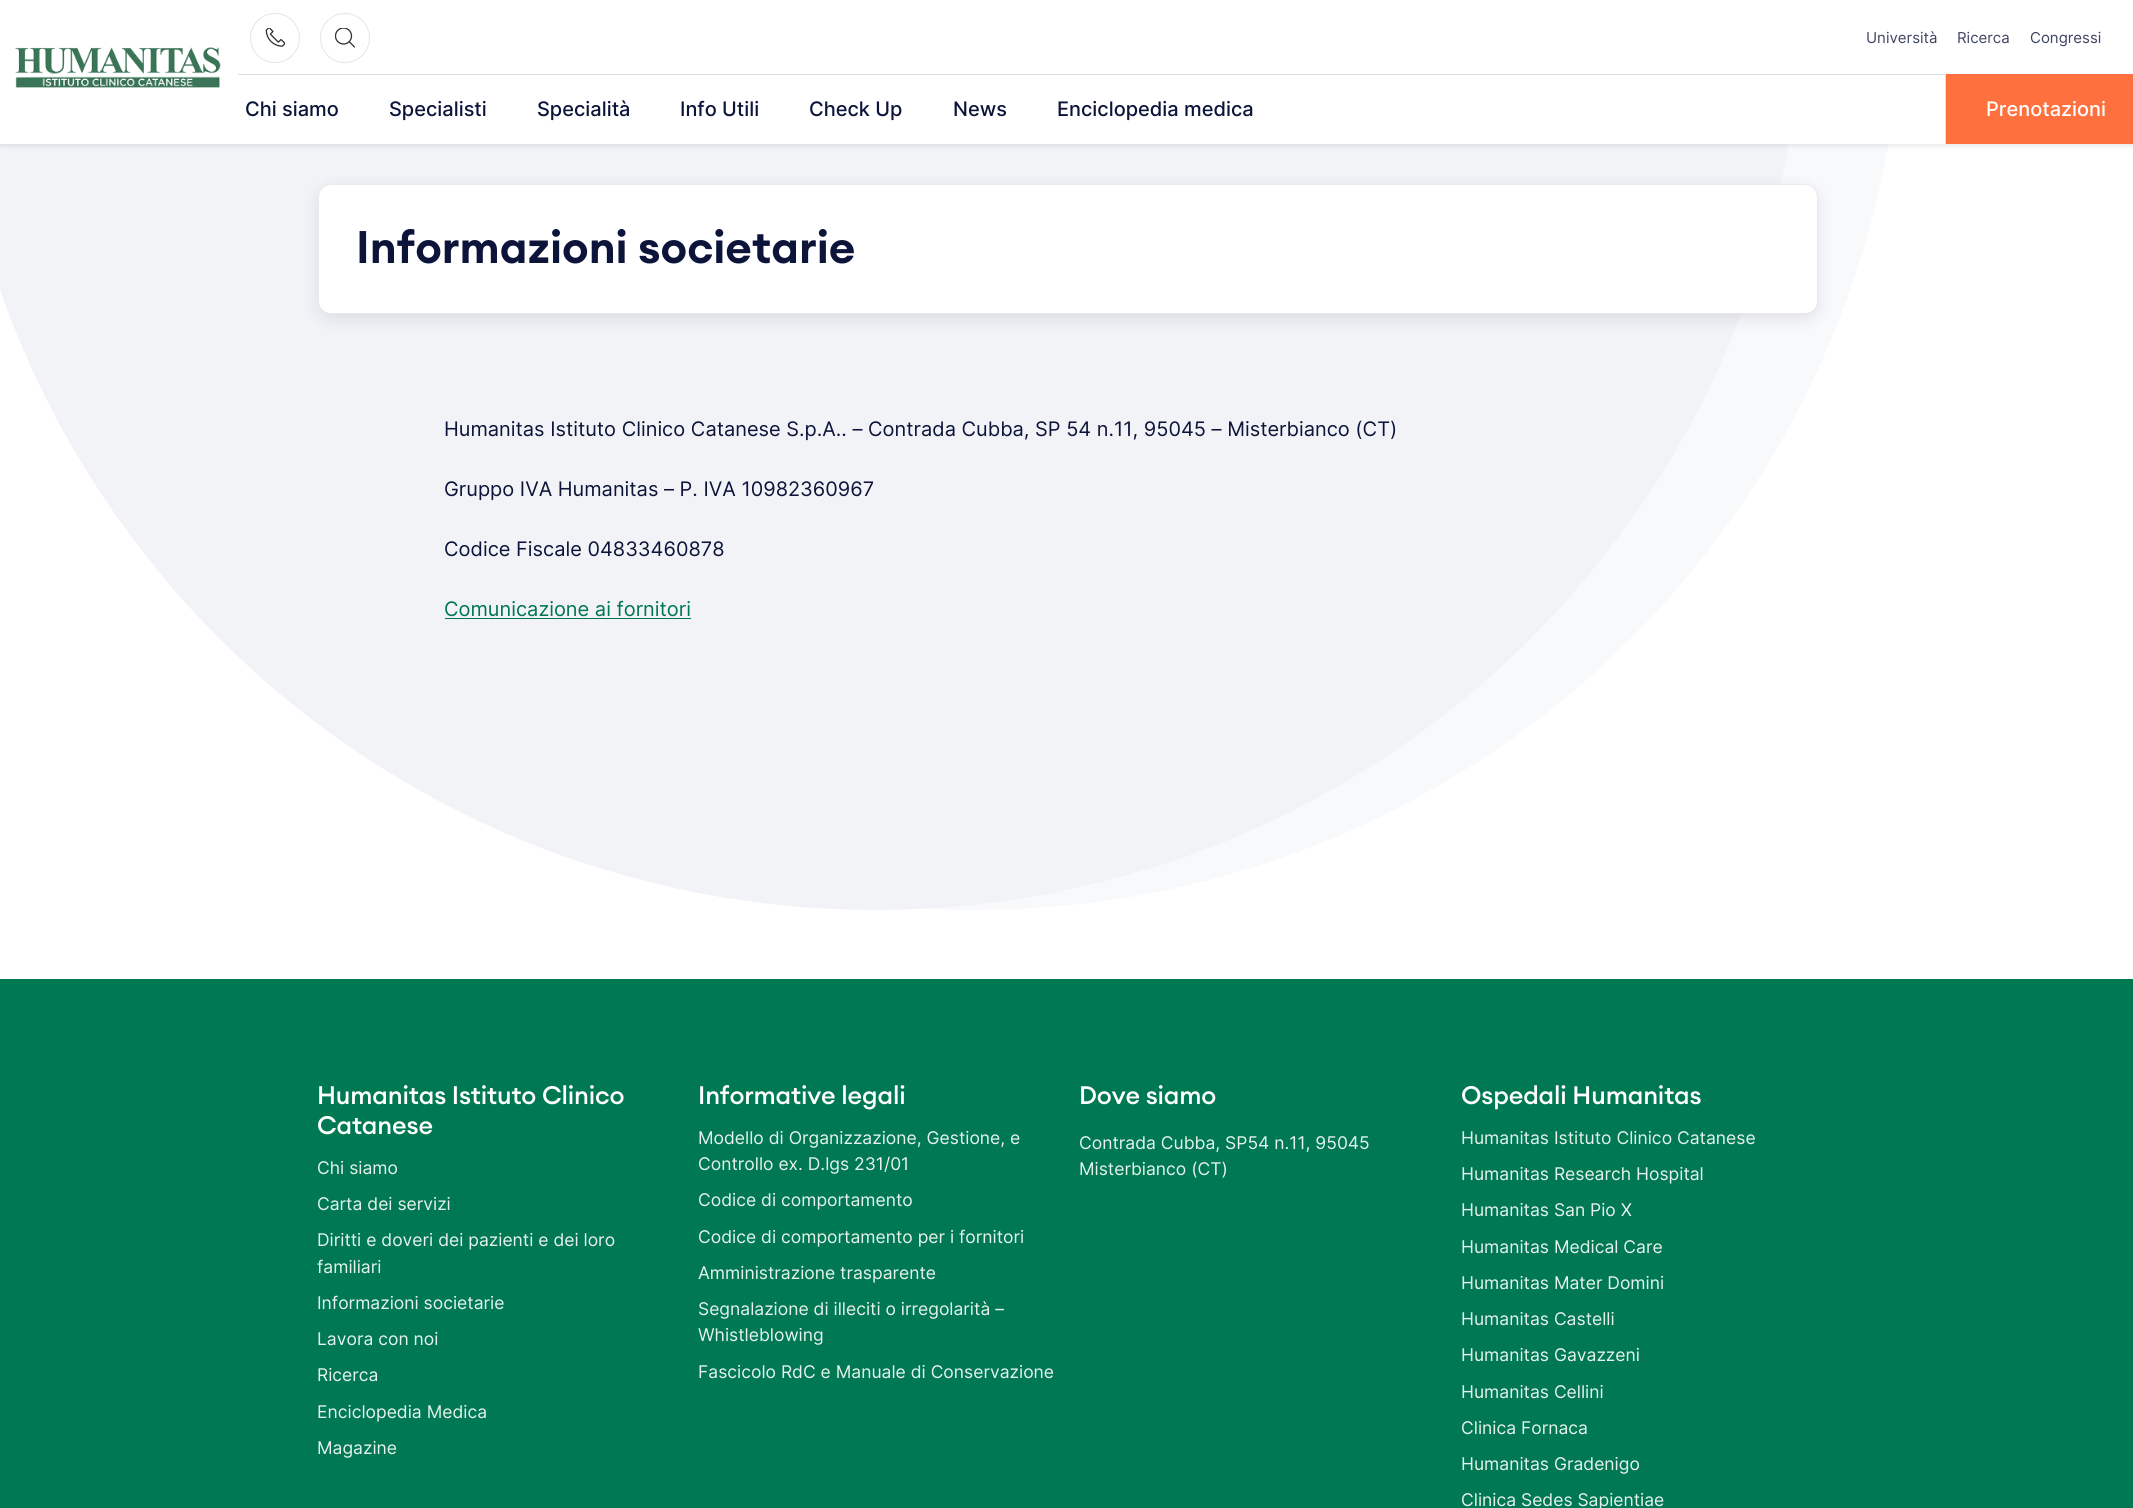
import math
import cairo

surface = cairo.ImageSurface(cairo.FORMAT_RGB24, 2133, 1508)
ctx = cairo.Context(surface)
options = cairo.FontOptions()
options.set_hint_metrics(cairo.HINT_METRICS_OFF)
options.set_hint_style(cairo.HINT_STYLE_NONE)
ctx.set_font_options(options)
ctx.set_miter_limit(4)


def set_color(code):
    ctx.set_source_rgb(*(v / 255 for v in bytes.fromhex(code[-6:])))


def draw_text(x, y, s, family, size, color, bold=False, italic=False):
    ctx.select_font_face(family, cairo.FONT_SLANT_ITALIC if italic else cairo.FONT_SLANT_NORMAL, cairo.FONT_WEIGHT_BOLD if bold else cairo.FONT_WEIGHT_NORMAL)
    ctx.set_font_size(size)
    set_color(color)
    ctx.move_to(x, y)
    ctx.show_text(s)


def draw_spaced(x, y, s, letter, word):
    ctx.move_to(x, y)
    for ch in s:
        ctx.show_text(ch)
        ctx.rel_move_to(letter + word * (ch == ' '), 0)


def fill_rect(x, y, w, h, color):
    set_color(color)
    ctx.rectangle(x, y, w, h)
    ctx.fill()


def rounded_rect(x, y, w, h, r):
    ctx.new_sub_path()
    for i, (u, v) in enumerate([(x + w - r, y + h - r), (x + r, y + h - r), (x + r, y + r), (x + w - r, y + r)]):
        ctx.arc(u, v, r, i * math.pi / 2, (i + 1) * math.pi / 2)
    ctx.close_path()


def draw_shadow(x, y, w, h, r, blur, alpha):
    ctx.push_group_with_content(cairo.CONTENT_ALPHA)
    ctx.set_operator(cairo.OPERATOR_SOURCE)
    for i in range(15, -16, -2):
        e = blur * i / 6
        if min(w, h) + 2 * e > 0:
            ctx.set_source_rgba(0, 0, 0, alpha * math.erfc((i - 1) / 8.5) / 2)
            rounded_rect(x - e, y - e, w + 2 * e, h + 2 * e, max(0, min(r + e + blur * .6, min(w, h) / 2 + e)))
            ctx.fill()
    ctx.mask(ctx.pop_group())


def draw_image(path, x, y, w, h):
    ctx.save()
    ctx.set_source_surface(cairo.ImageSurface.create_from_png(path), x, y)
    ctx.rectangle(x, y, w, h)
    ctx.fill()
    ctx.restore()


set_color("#ffffff")
ctx.paint()
draw_image("assets/img3.png", 0, 144, 1888, 766)
set_color("#0c122d")
draw_shadow(0, 3, 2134, 143, 0, 2.5, 0.1)
fill_rect(0, 0, 2133, 144, "#ffffff")
draw_image("assets/img1.png", 15, 47, 206, 41)
fill_rect(238, 74, 1707, 1, "#dbdee6")
ctx.arc(275, 38, 24.5, 0, 2 * math.pi)
set_color("#e5e5e5")
ctx.set_line_width(1)
ctx.stroke()
draw_image("assets/img2.png", 265, 28, 20, 19)
ctx.arc(345, 38, 24.5, 0, 2 * math.pi)
ctx.stroke()
ctx.save()
ctx.rectangle(335, 28, 20, 20)
ctx.clip()
ctx.arc(343.5, 36, 8, 0, 2 * math.pi)
set_color("#333333")
ctx.set_line_width(1.3)
ctx.stroke()
ctx.restore()
ctx.new_path()
ctx.move_to(354.5, 47)
ctx.line_to(349.5, 42)
set_color("#333333")
ctx.set_line_width(1.3)
ctx.set_line_cap(cairo.LINE_CAP_ROUND)
ctx.set_line_join(cairo.LINE_JOIN_ROUND)
ctx.stroke()
draw_text(1866, 43, "Università", "Inter", 15, "#3d4361")
draw_text(1957, 43, "Ricerca", "Inter", 15, "#3d4361")
draw_text(2030, 43, "Congressi", "Inter", 15, "#3d4361")
draw_text(245, 116, "Chi siamo", "Inter Medium", 20, "#0c143a")
draw_text(389, 116, "Specialisti", "Inter Medium", 20, "#0c143a")
draw_text(537, 116, "Specialità", "Inter Medium", 20, "#0c143a")
draw_text(680, 116, "Info Utili", "Inter Medium", 20, "#0c143a")
draw_text(809, 116, "Check Up", "Inter Medium", 20, "#0c143a")
draw_text(953, 116, "News", "Inter Medium", 20, "#0c143a")
draw_text(1057, 116, "Enciclopedia medica", "Inter Medium", 20, "#0c143a")
fill_rect(1946, 74, 187, 70, "#ff703f")
fill_rect(1945, 74, 1, 70, "#dbdee6")
draw_text(1986, 116, "Prenotazioni", "Inter Medium", 20, "#ffffff")
set_color("#0c122d")
draw_shadow(318, 189, 1500, 130, 13, 7.5, 0.1)
set_color("#ffffff")
rounded_rect(318.5, 184.5, 1499, 129, 12.5)
ctx.fill_preserve()
set_color("#eaeaea")
ctx.set_line_width(1)
ctx.set_line_cap(cairo.LINE_CAP_BUTT)
ctx.set_line_join(cairo.LINE_JOIN_MITER)
ctx.stroke()
draw_text(356, 263, "Informazioni societarie", "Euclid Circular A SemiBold", 45, "#0c143a")
draw_text(444, 436, "Humanitas Istituto Clinico Catanese S.p.A.. – Contrada Cubba, SP 54 n.11, 95045 – Misterbianco (CT)", "Inter", 20, "#0c143a")
draw_text(444, 496, "Gruppo IVA Humanitas – P. IVA 10982360967", "Inter", 20, "#0c143a")
draw_text(444, 556, "Codice Fiscale 04833460878", "Inter", 20, "#0c143a")
draw_text(444, 616, "Comunicazione ai fornitori", "Inter", 20, "#00764e")
fill_rect(445, 618, 246, 1, "#00764e")
fill_rect(0, 979, 2133, 529, "#007953")
ctx.select_font_face("Euclid Circular A Medium")
ctx.set_font_size(25)
set_color("#ffffff")
draw_spaced(317, 1104, "Humanitas Istituto Clinico", -0.15, 0)
draw_spaced(317, 1134, "Catanese", -0.15, 0)
draw_text(317, 1174, "Chi siamo", "Inter", 17.5, "#e6f2ee")
draw_text(317, 1210, "Carta dei servizi", "Inter", 17.5, "#e6f2ee")
draw_text(317, 1246, "Diritti e doveri dei pazienti e dei loro", "Inter", 17.5, "#e6f2ee")
draw_text(317, 1273, "familiari", "Inter", 17.5, "#e6f2ee")
draw_text(317, 1309, "Informazioni societarie", "Inter", 17.5, "#e6f2ee")
draw_text(317, 1345, "Lavora con noi", "Inter", 17.5, "#e6f2ee")
draw_text(317, 1381, "Ricerca", "Inter", 17.5, "#e6f2ee")
draw_text(317, 1418, "Enciclopedia Medica", "Inter", 17.5, "#e6f2ee")
draw_text(317, 1454, "Magazine", "Inter", 17.5, "#e6f2ee")
ctx.select_font_face("Euclid Circular A Medium")
ctx.set_font_size(25)
set_color("#ffffff")
draw_spaced(698, 1104, "Informative legali", -0.15, 0)
draw_text(698, 1144, "Modello di Organizzazione, Gestione, e", "Inter", 17.5, "#e6f2ee")
draw_text(698, 1170, "Controllo ex. D.lgs 231/01", "Inter", 17.5, "#e6f2ee")
draw_text(698, 1206, "Codice di comportamento", "Inter", 17.5, "#e6f2ee")
draw_text(698, 1243, "Codice di comportamento per i fornitori", "Inter", 17.5, "#e6f2ee")
draw_text(698, 1279, "Amministrazione trasparente", "Inter", 17.5, "#e6f2ee")
draw_text(698, 1315, "Segnalazione di illeciti o irregolarità –", "Inter", 17.5, "#e6f2ee")
draw_text(698, 1341, "Whistleblowing", "Inter", 17.5, "#e6f2ee")
draw_text(698, 1378, "Fascicolo RdC e Manuale di Conservazione", "Inter", 17.5, "#e6f2ee")
ctx.select_font_face("Euclid Circular A Medium")
ctx.set_font_size(25)
set_color("#ffffff")
draw_spaced(1079, 1104, "Dove siamo", -0.15, 0)
draw_text(1079, 1149, "Contrada Cubba, SP54 n.11, 95045", "Inter", 17.5, "#e6f2ee")
draw_text(1079, 1175, "Misterbianco (CT)", "Inter", 17.5, "#e6f2ee")
ctx.select_font_face("Euclid Circular A Medium")
ctx.set_font_size(25)
set_color("#ffffff")
draw_spaced(1461, 1104, "Ospedali Humanitas", -0.15, 0)
draw_text(1461, 1144, "Humanitas Istituto Clinico Catanese", "Inter", 17.5, "#e6f2ee")
draw_text(1461, 1180, "Humanitas Research Hospital", "Inter", 17.5, "#e6f2ee")
draw_text(1461, 1216, "Humanitas San Pio X", "Inter", 17.5, "#e6f2ee")
draw_text(1461, 1253, "Humanitas Medical Care", "Inter", 17.5, "#e6f2ee")
draw_text(1461, 1289, "Humanitas Mater Domini", "Inter", 17.5, "#e6f2ee")
draw_text(1461, 1325, "Humanitas Castelli", "Inter", 17.5, "#e6f2ee")
draw_text(1461, 1361, "Humanitas Gavazzeni", "Inter", 17.5, "#e6f2ee")
draw_text(1461, 1398, "Humanitas Cellini", "Inter", 17.5, "#e6f2ee")
draw_text(1461, 1434, "Clinica Fornaca", "Inter", 17.5, "#e6f2ee")
draw_text(1461, 1470, "Humanitas Gradenigo", "Inter", 17.5, "#e6f2ee")
draw_text(1461, 1506, "Clinica Sedes Sapientiae", "Inter", 17.5, "#e6f2ee")
surface.write_to_png("output.png")
